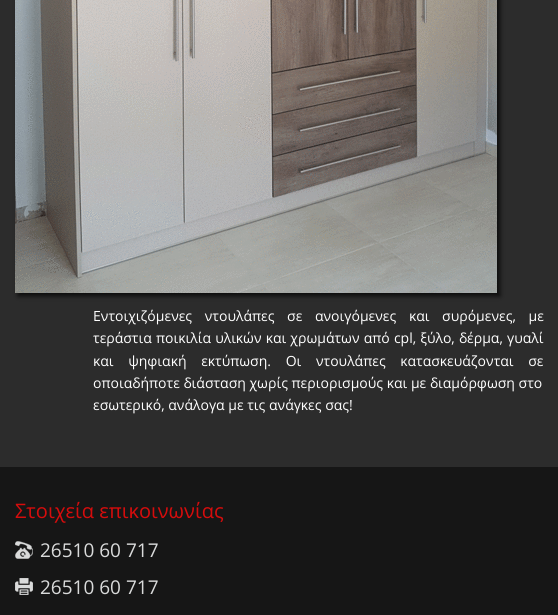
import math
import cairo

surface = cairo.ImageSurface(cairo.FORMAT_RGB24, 558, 615)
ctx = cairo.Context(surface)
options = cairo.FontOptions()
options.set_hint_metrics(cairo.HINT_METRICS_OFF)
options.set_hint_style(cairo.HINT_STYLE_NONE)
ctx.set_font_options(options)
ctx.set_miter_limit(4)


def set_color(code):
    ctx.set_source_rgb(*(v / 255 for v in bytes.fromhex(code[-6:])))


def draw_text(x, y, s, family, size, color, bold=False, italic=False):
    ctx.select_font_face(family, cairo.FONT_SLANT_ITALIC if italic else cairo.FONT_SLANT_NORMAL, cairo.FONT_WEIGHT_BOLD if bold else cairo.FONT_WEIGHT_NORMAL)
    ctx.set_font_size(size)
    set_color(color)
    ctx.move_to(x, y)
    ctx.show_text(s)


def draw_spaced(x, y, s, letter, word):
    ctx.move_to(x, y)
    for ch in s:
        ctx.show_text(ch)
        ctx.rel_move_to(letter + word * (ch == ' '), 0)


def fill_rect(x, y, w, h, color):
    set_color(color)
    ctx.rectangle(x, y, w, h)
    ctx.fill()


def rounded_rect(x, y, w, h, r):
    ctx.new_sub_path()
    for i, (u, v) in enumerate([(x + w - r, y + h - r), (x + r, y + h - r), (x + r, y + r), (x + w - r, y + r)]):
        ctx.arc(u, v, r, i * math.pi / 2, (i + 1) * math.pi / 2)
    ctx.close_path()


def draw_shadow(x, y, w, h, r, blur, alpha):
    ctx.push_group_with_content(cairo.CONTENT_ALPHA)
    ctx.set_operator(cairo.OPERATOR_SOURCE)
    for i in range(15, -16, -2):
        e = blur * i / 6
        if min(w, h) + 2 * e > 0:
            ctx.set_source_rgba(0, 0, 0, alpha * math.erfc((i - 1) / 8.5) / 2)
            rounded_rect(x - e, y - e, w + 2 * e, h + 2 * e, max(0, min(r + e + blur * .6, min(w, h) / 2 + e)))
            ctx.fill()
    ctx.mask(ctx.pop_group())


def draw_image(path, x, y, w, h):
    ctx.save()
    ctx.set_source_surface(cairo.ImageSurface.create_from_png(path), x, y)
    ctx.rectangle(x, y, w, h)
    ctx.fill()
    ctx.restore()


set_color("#2c2c2c")
ctx.paint()
set_color("#000000")
draw_shadow(18, -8, 482, 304, 0, 2.5, 0.75)
draw_image("assets/img1.png", 15, 0, 482, 293)
ctx.select_font_face("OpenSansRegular")
ctx.set_font_size(14)
set_color("#ffffff")
draw_spaced(93, 321, "Εντοιχιζόμενες ντουλάπες σε ανοιγόμενες και συρόμενες, με", 0, 9)
draw_spaced(93, 343, "τεράστια ποικιλία υλικών και χρωμάτων από cpl, ξύλο, δέρμα, γυαλί", 0, 0.5)
draw_spaced(93, 366, "και ψηφιακή εκτύπωση. Οι ντουλάπες κατασκευάζονται σε", 0, 11)
draw_text(93, 388, "οποιαδήποτε διάσταση χωρίς περιορισμούς και με διαμόρφωση στο", "OpenSansRegular", 14, "#ffffff")
draw_text(93, 410, "εσωτερικό, ανάλογα με τις ανάγκες σας!", "OpenSansRegular", 14, "#ffffff")
fill_rect(0, 467, 558, 148, "#161616")
draw_text(15, 518, "Στοιχεία επικοινωνίας", "OpenSansRegular", 20, "#d60c0c")
draw_image("assets/img2.png", 15, 541, 18, 18)
draw_text(40, 557, "26510 60 717", "OpenSansRegular", 19, "#d9dada")
draw_image("assets/img3.png", 15, 578, 18, 17)
draw_text(40, 594, "26510 60 717", "OpenSansRegular", 19, "#d9dada")
surface.write_to_png("output.png")
